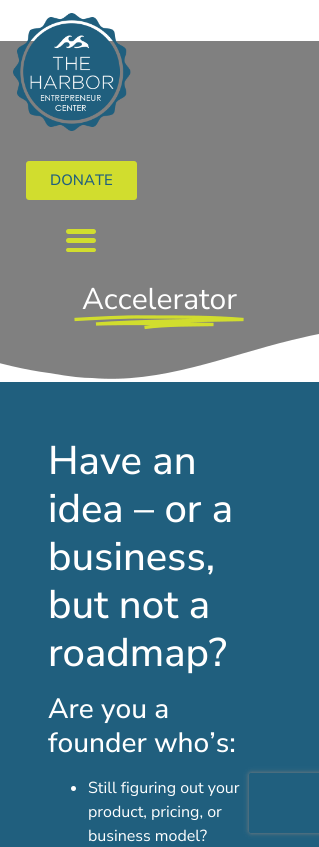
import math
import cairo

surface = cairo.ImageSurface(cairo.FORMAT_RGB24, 319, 847)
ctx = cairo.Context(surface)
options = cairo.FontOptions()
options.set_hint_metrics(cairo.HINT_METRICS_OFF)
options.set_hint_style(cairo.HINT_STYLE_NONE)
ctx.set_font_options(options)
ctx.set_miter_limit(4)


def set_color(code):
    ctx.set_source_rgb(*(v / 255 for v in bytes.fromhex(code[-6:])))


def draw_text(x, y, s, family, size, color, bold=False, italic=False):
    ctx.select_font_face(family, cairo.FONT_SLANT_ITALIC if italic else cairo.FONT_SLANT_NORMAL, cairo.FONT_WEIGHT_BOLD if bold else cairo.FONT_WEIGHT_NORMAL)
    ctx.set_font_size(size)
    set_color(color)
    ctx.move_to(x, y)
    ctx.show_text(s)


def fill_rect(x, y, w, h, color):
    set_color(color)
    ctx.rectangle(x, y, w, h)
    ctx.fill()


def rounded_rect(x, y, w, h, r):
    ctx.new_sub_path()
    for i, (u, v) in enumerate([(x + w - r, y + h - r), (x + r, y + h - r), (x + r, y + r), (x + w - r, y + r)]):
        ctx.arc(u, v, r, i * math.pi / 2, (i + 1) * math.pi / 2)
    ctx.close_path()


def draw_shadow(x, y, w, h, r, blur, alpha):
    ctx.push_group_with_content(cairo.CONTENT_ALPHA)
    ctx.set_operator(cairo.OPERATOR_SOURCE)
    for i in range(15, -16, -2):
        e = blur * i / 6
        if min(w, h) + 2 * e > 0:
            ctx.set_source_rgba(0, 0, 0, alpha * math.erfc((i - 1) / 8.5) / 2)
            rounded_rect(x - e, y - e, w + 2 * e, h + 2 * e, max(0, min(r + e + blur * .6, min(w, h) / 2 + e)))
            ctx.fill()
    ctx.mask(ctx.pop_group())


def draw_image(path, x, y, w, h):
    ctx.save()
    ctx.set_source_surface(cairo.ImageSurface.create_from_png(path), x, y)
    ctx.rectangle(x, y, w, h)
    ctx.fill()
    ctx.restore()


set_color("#ffffff")
ctx.paint()
fill_rect(0, 41, 319, 338, "#808080")
draw_image("assets/img1.png", 13, 13, 118, 118)
set_color("#d1dd2e")
rounded_rect(26, 161, 111, 39, 3)
ctx.fill()
draw_text(50, 185, "DONATE", "Nunito Sans Medium", 15, "#205f7e")
set_color("#d1dd2e")
rounded_rect(66, 238, 30, 5, 2.5)
ctx.fill()
rounded_rect(66, 229, 30, 5, 2.5)
ctx.fill()
rounded_rect(66, 248, 30, 4, 2)
ctx.fill()
draw_text(82, 309, "Accelerator", "Nunito Sans", 30, "#ffffff")
ctx.new_path()
ctx.move_to(74.5, 319.5)
ctx.curve_to(92, 318.5, 127.5, 316.5, 144.5, 317)
ctx.curve_to(187.5, 317, 211, 317, 243.5, 319.5)
ctx.curve_to(204.5, 320.5, 135, 321, 96, 324)
ctx.curve_to(125, 323, 185, 323.5, 213.5, 324.5)
ctx.curve_to(194, 325, 165.5, 324.5, 144.5, 327.5)
set_color("#d1dd2e")
ctx.set_line_width(3.3)
ctx.stroke()
set_color("#ffffff")
ctx.new_path()
ctx.move_to(92, 378)
ctx.curve_to(161, 384, 226, 356, 292, 340)
ctx.curve_to(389, 316, 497, 313, 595, 339)
ctx.line_to(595, 382)
ctx.line_to(-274, 382)
ctx.line_to(-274, 363)
ctx.curve_to(-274, 363, -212, 343, -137, 345)
ctx.curve_to(-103, 345, -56, 349, -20, 358)
ctx.curve_to(-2, 363, 25, 370, 49, 373)
ctx.curve_to(72, 377, 83, 378, 92, 378)
ctx.close_path()
ctx.fill()
fill_rect(0, 382, 319, 465, "#205f7e")
draw_text(48, 474, "Have an", "Nunito Sans Medium", 40, "#ffffff")
draw_text(48, 522, "idea – or a", "Nunito Sans Medium", 40, "#ffffff")
draw_text(48, 570, "business,", "Nunito Sans Medium", 40, "#ffffff")
draw_text(48, 618, "but not a", "Nunito Sans Medium", 40, "#ffffff")
draw_text(48, 666, "roadmap?", "Nunito Sans Medium", 40, "#ffffff")
draw_text(48, 718, "Are you a", "Nunito Sans Medium", 28, "#ffffff")
draw_text(48, 752, "founder who’s:", "Nunito Sans Medium", 28, "#ffffff")
ctx.new_path()
ctx.arc(73.5, 788.5, 2.5, 0, 2 * math.pi)
ctx.fill()
draw_text(88, 793, "Still figuring out your", "Nunito Sans", 16, "#ffffff")
draw_text(88, 817, "product, pricing, or", "Nunito Sans", 16, "#ffffff")
draw_text(88, 841, "business model?", "Nunito Sans", 16, "#ffffff")
ctx.save()
ctx.set_fill_rule(cairo.FILL_RULE_EVEN_ODD)
ctx.new_path()
ctx.move_to(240, 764)
ctx.line_to(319, 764)
ctx.line_to(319, 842)
ctx.line_to(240, 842)
ctx.close_path()
ctx.move_to(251, 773)
ctx.line_to(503, 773)
ctx.curve_to(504, 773, 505, 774, 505, 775)
ctx.line_to(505, 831)
ctx.curve_to(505, 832, 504, 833, 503, 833)
ctx.line_to(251, 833)
ctx.curve_to(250, 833, 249, 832, 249, 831)
ctx.line_to(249, 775)
ctx.curve_to(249, 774, 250, 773, 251, 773)
ctx.close_path()
ctx.clip()
set_color("#808080")
draw_shadow(249, 773, 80, 60, 2, 2.5, 1)
ctx.restore()
surface.write_to_png("output.png")
